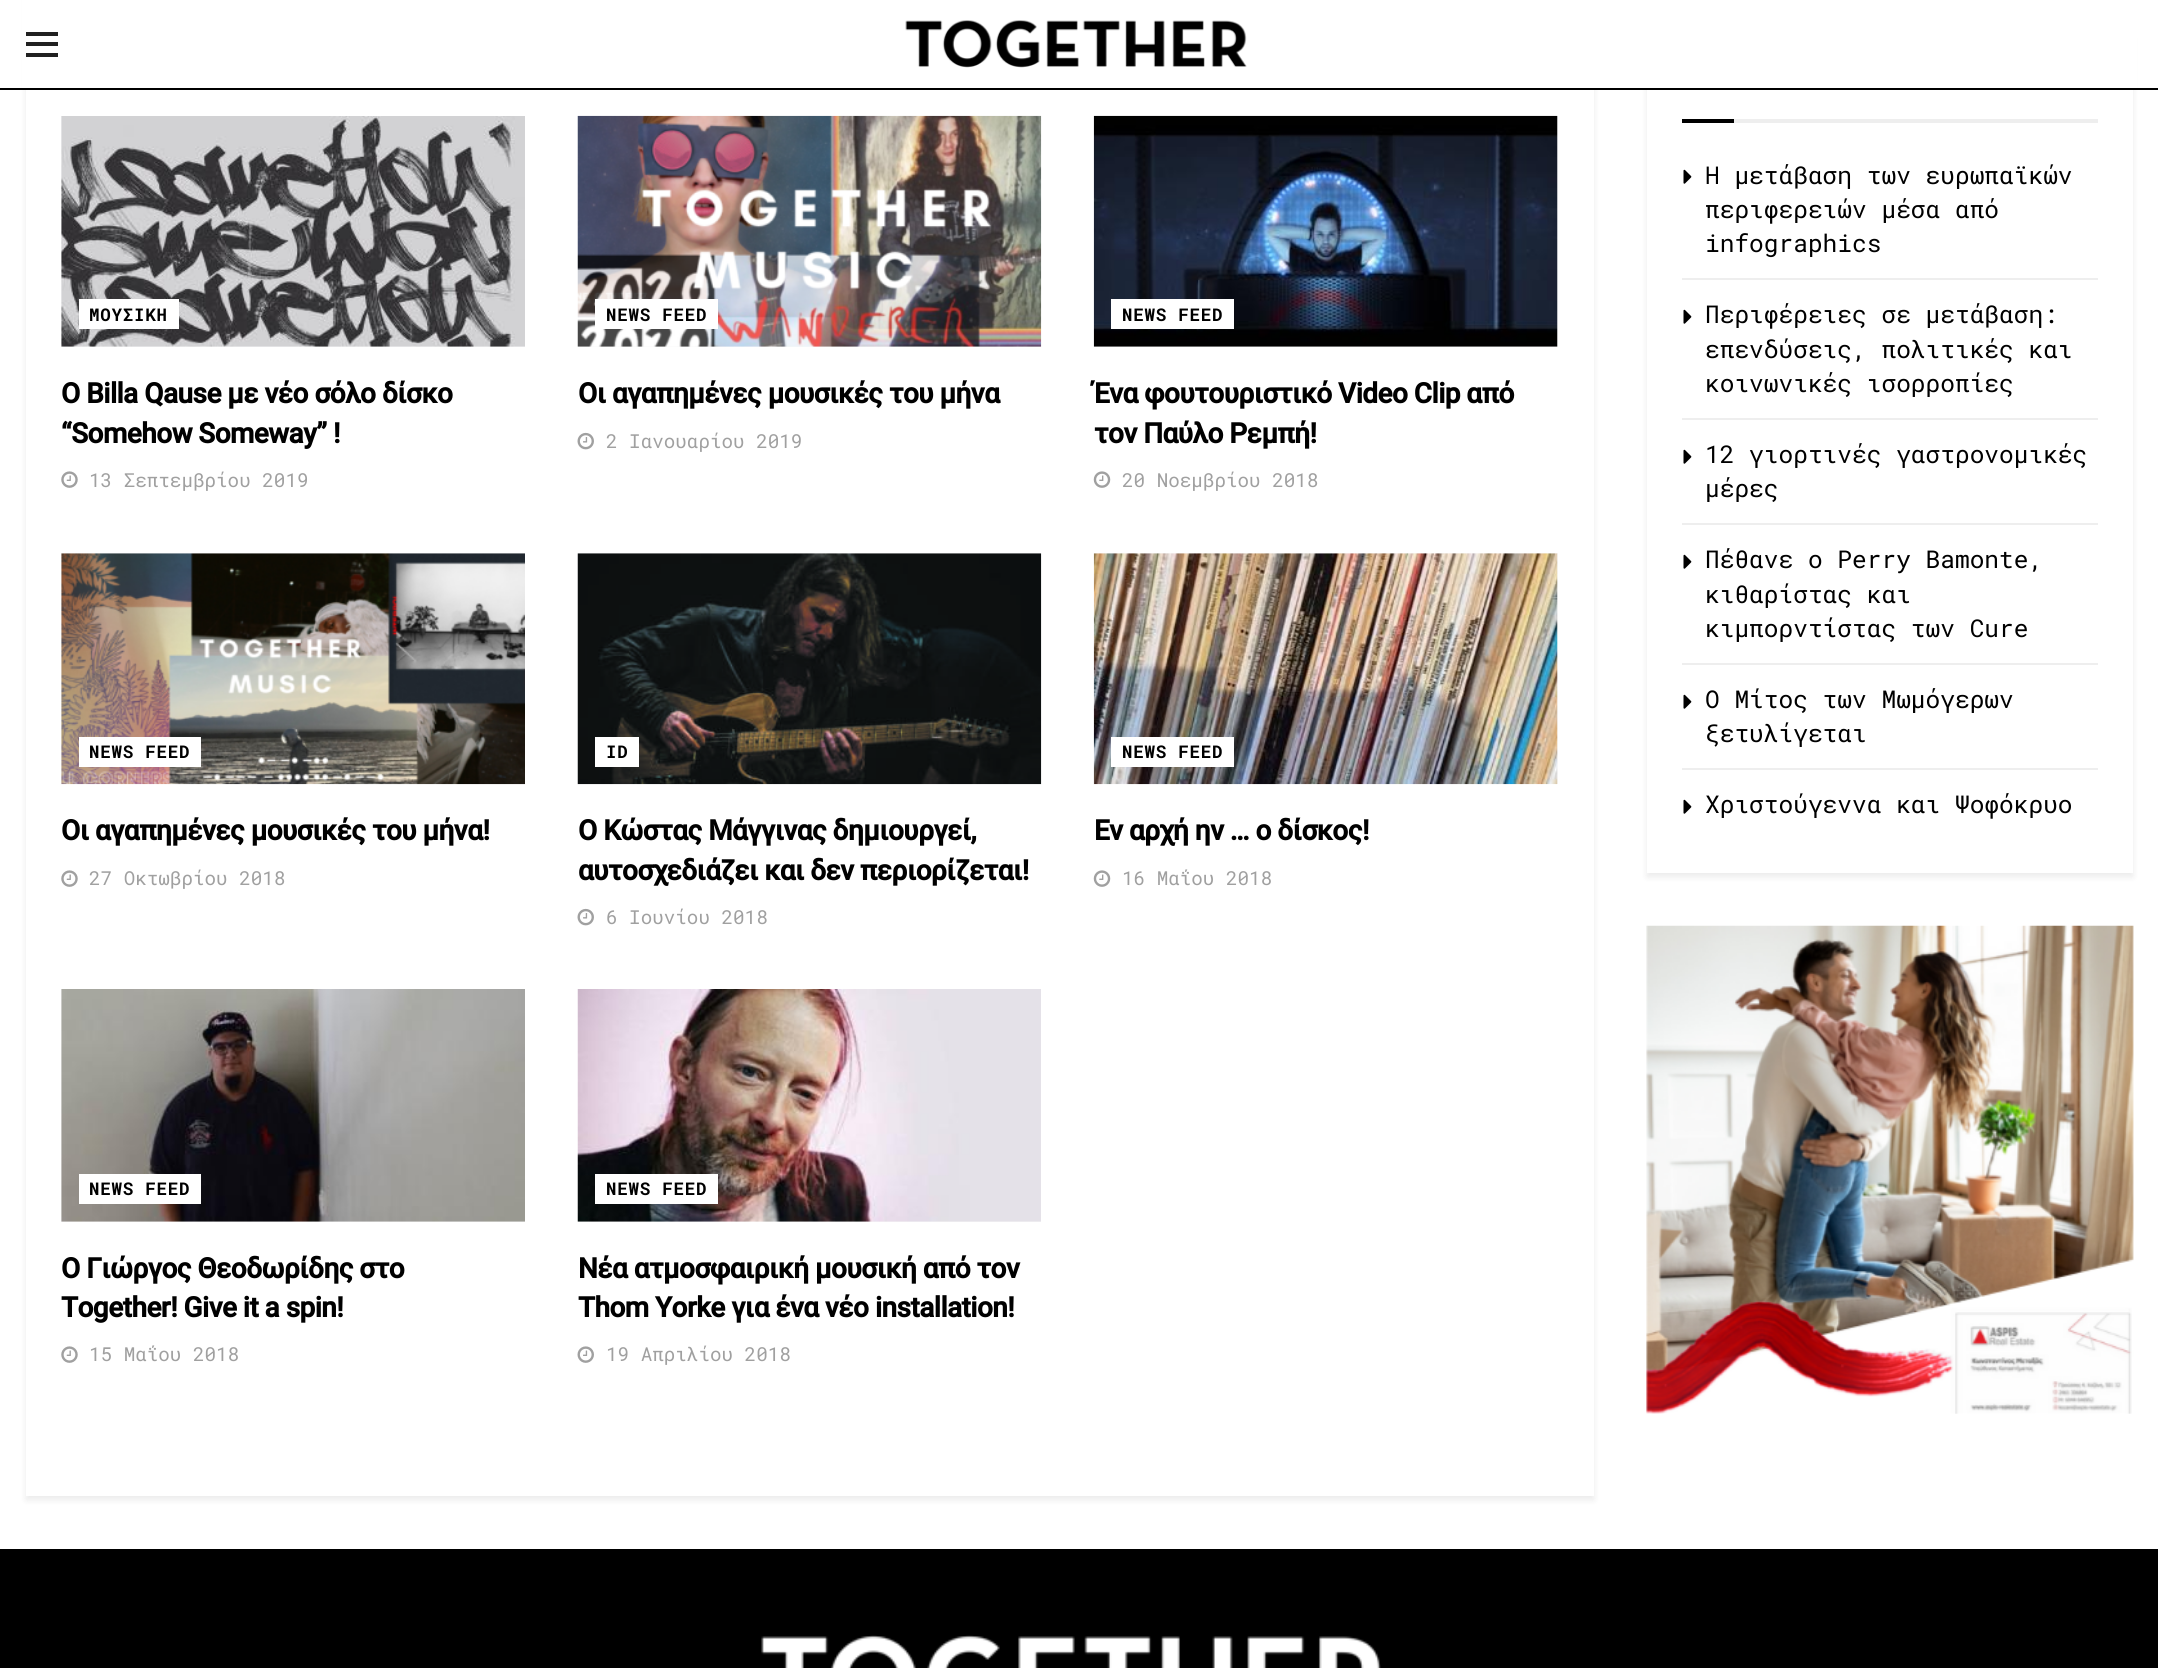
import math
import cairo

surface = cairo.ImageSurface(cairo.FORMAT_RGB24, 2158, 1668)
ctx = cairo.Context(surface)
options = cairo.FontOptions()
options.set_hint_metrics(cairo.HINT_METRICS_OFF)
options.set_hint_style(cairo.HINT_STYLE_NONE)
ctx.set_font_options(options)
ctx.set_miter_limit(4)


def set_color(code):
    ctx.set_source_rgb(*(v / 255 for v in bytes.fromhex(code[-6:])))


def draw_text(x, y, s, family, size, color, bold=False, italic=False):
    ctx.select_font_face(family, cairo.FONT_SLANT_ITALIC if italic else cairo.FONT_SLANT_NORMAL, cairo.FONT_WEIGHT_BOLD if bold else cairo.FONT_WEIGHT_NORMAL)
    ctx.set_font_size(size)
    set_color(color)
    ctx.move_to(x, y)
    ctx.show_text(s)


def draw_spaced(x, y, s, letter, word):
    ctx.move_to(x, y)
    for ch in s:
        ctx.show_text(ch)
        ctx.rel_move_to(letter + word * (ch == ' '), 0)


def fill_rect(x, y, w, h, color):
    set_color(color)
    ctx.rectangle(x, y, w, h)
    ctx.fill()


def rounded_rect(x, y, w, h, r):
    ctx.new_sub_path()
    for i, (u, v) in enumerate([(x + w - r, y + h - r), (x + r, y + h - r), (x + r, y + r), (x + w - r, y + r)]):
        ctx.arc(u, v, r, i * math.pi / 2, (i + 1) * math.pi / 2)
    ctx.close_path()


def draw_shadow(x, y, w, h, r, blur, alpha):
    ctx.push_group_with_content(cairo.CONTENT_ALPHA)
    ctx.set_operator(cairo.OPERATOR_SOURCE)
    for i in range(15, -16, -2):
        e = blur * i / 6
        if min(w, h) + 2 * e > 0:
            ctx.set_source_rgba(0, 0, 0, alpha * math.erfc((i - 1) / 8.5) / 2)
            rounded_rect(x - e, y - e, w + 2 * e, h + 2 * e, max(0, min(r + e + blur * .6, min(w, h) / 2 + e)))
            ctx.fill()
    ctx.mask(ctx.pop_group())


def draw_image(path, x, y, w, h):
    ctx.save()
    ctx.set_source_surface(cairo.ImageSurface.create_from_png(path), x, y)
    ctx.rectangle(x, y, w, h)
    ctx.fill()
    ctx.restore()


set_color("#ffffff")
ctx.paint()
set_color("#000000")
draw_shadow(26, -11, 1568, 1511, 0, 3.5, 0.08)
ctx.save()
ctx.set_fill_rule(cairo.FILL_RULE_EVEN_ODD)
ctx.new_path()
ctx.move_to(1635, 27)
ctx.line_to(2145, 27)
ctx.line_to(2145, 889)
ctx.line_to(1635, 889)
ctx.close_path()
ctx.move_to(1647, 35)
ctx.line_to(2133, 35)
ctx.line_to(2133, 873)
ctx.line_to(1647, 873)
ctx.close_path()
ctx.clip()
draw_shadow(1647, 39, 486, 838, 0, 3.5, 0.08)
ctx.restore()
fill_rect(22, 0, 2115, 88, "#ffffff")
fill_rect(0, 88, 2158, 2, "#000000")
fill_rect(26, 32, 32, 4, "#212121")
fill_rect(26, 42, 32, 4, "#212121")
fill_rect(26, 53, 32, 4, "#212121")
draw_image("assets/img1.png", 905, 20, 342, 48)
fill_rect(26, 90, 1568, 1406, "#ffffff")
fill_rect(61, 116, 464, 231, "#f7f7f7")
draw_image("assets/img2.png", 61, 116, 464, 231)
fill_rect(79, 299, 100, 30, "#ffffff")
ctx.select_font_face("Roboto Mono", cairo.FONT_SLANT_NORMAL, cairo.FONT_WEIGHT_BOLD)
ctx.set_font_size(17.5)
set_color("#000000")
draw_spaced(89, 321, "ΜΟΥΣΙΚΗ", 0.75, 0)
ctx.select_font_face("Roboto", cairo.FONT_SLANT_NORMAL, cairo.FONT_WEIGHT_BOLD)
ctx.set_font_size(28)
draw_spaced(61, 403, "Ο Billa Qause με νέο σόλο δίσκο", -0.55, 0)
draw_spaced(61, 443, "“Somehow Someway” !", -0.55, 0)
draw_image("assets/img3.png", 61, 471, 17, 17)
draw_text(89, 487, "13 Σεπτεμβρίου 2019", "Roboto Mono", 19.25, "#a0a0a0")
fill_rect(578, 346, 463, 1, "#f7f7f7")
draw_image("assets/img4.png", 577, 115, 465, 232)
fill_rect(595, 299, 123, 30, "#ffffff")
ctx.select_font_face("Roboto Mono", cairo.FONT_SLANT_NORMAL, cairo.FONT_WEIGHT_BOLD)
ctx.set_font_size(17.5)
set_color("#000000")
draw_spaced(606, 321, "NEWS FEED", 0.75, 0)
ctx.select_font_face("Roboto", cairo.FONT_SLANT_NORMAL, cairo.FONT_WEIGHT_BOLD)
ctx.set_font_size(28)
draw_spaced(578, 403, "Οι αγαπημένες μουσικές του μήνα", -0.55, 0)
draw_image("assets/img5.png", 577, 432, 17, 18)
draw_text(606, 448, "2 Ιανουαρίου 2019", "Roboto Mono", 19.25, "#a0a0a0")
fill_rect(1094, 116, 464, 231, "#f7f7f7")
draw_image("assets/img6.png", 1093, 115, 465, 232)
fill_rect(1111, 299, 123, 30, "#ffffff")
ctx.select_font_face("Roboto Mono", cairo.FONT_SLANT_NORMAL, cairo.FONT_WEIGHT_BOLD)
ctx.set_font_size(17.5)
set_color("#000000")
draw_spaced(1122, 321, "NEWS FEED", 0.75, 0)
ctx.select_font_face("Roboto", cairo.FONT_SLANT_NORMAL, cairo.FONT_WEIGHT_BOLD)
ctx.set_font_size(28)
draw_spaced(1094, 403, "Ένα φουτουριστικό Video Clip από", -0.55, 0)
draw_spaced(1094, 443, "τον Παύλο Ρεμπή!", -0.55, 0)
draw_image("assets/img7.png", 1093, 471, 18, 17)
draw_text(1122, 487, "20 Νοεμβρίου 2018", "Roboto Mono", 19.25, "#a0a0a0")
fill_rect(61, 553, 464, 231, "#f7f7f7")
draw_image("assets/img8.png", 61, 553, 464, 232)
fill_rect(79, 737, 122, 30, "#ffffff")
ctx.select_font_face("Roboto Mono", cairo.FONT_SLANT_NORMAL, cairo.FONT_WEIGHT_BOLD)
ctx.set_font_size(17.5)
set_color("#000000")
draw_spaced(89, 758, "NEWS FEED", 0.75, 0)
ctx.select_font_face("Roboto", cairo.FONT_SLANT_NORMAL, cairo.FONT_WEIGHT_BOLD)
ctx.set_font_size(28)
draw_spaced(61, 840, "Οι αγαπημένες μουσικές του μήνα!", -0.55, 0)
draw_image("assets/img3.png", 61, 870, 17, 17)
draw_text(89, 885, "27 Οκτωβρίου 2018", "Roboto Mono", 19.25, "#a0a0a0")
fill_rect(578, 553, 463, 1, "#f7f7f7")
draw_image("assets/img9.png", 577, 553, 465, 232)
fill_rect(595, 737, 44, 30, "#ffffff")
ctx.select_font_face("Roboto Mono", cairo.FONT_SLANT_NORMAL, cairo.FONT_WEIGHT_BOLD)
ctx.set_font_size(17.5)
set_color("#000000")
draw_spaced(606, 758, "ID", 0.75, 0)
ctx.select_font_face("Roboto", cairo.FONT_SLANT_NORMAL, cairo.FONT_WEIGHT_BOLD)
ctx.set_font_size(28)
draw_spaced(578, 840, "Ο Κώστας Μάγγινας δημιουργεί,", -0.55, 0)
draw_spaced(578, 880, "αυτοσχεδιάζει και δεν περιορίζεται!", -0.55, 0)
draw_image("assets/img5.png", 577, 908, 17, 18)
draw_text(606, 924, "6 Ιουνίου 2018", "Roboto Mono", 19.25, "#a0a0a0")
fill_rect(1094, 553, 464, 231, "#f7f7f7")
draw_image("assets/img10.png", 1093, 553, 465, 232)
fill_rect(1111, 737, 123, 30, "#ffffff")
ctx.select_font_face("Roboto Mono", cairo.FONT_SLANT_NORMAL, cairo.FONT_WEIGHT_BOLD)
ctx.set_font_size(17.5)
set_color("#000000")
draw_spaced(1122, 758, "NEWS FEED", 0.75, 0)
ctx.select_font_face("Roboto", cairo.FONT_SLANT_NORMAL, cairo.FONT_WEIGHT_BOLD)
ctx.set_font_size(28)
draw_spaced(1094, 840, "Εν αρχή ην … ο δίσκος!", -0.55, 0)
draw_image("assets/img7.png", 1093, 870, 18, 17)
draw_text(1122, 885, "16 Μαΐου 2018", "Roboto Mono", 19.25, "#a0a0a0")
fill_rect(61, 989, 464, 233, "#f7f7f7")
draw_image("assets/img11.png", 61, 989, 464, 233)
fill_rect(79, 1174, 122, 30, "#ffffff")
ctx.select_font_face("Roboto Mono", cairo.FONT_SLANT_NORMAL, cairo.FONT_WEIGHT_BOLD)
ctx.set_font_size(17.5)
set_color("#000000")
draw_spaced(89, 1195, "NEWS FEED", 0.75, 0)
ctx.select_font_face("Roboto", cairo.FONT_SLANT_NORMAL, cairo.FONT_WEIGHT_BOLD)
ctx.set_font_size(28)
draw_spaced(61, 1278, "O Γιώργος Θεοδωρίδης στο", -0.55, 0)
draw_spaced(61, 1317, "Together! Give it a spin!", -0.55, 0)
draw_image("assets/img3.png", 61, 1346, 17, 17)
draw_text(89, 1361, "15 Μαΐου 2018", "Roboto Mono", 19.25, "#a0a0a0")
fill_rect(578, 1221, 463, 1, "#f7f7f7")
draw_image("assets/img12.png", 577, 989, 464, 233)
fill_rect(595, 1174, 123, 30, "#ffffff")
ctx.select_font_face("Roboto Mono", cairo.FONT_SLANT_NORMAL, cairo.FONT_WEIGHT_BOLD)
ctx.set_font_size(17.5)
set_color("#000000")
draw_spaced(606, 1195, "NEWS FEED", 0.75, 0)
ctx.select_font_face("Roboto", cairo.FONT_SLANT_NORMAL, cairo.FONT_WEIGHT_BOLD)
ctx.set_font_size(28)
draw_spaced(578, 1278, "Νέα ατμοσφαιρική μουσική από τον", -0.55, 0)
draw_spaced(578, 1317, "Thom Yorke για ένα νέο installation!", -0.55, 0)
draw_image("assets/img13.png", 577, 1346, 17, 17)
draw_text(606, 1361, "19 Απριλίου 2018", "Roboto Mono", 19.25, "#a0a0a0")
fill_rect(1734, 119, 364, 4, "#eeeeee")
fill_rect(1682, 119, 52, 4, "#000000")
fill_rect(1682, 278, 416, 2, "#eeeeee")
draw_image("assets/img14.png", 1683, 169, 9, 15)
draw_text(1705, 184, "Η μετάβαση των ευρωπαϊκών", "Roboto Mono", 24.5, "#000000")
draw_text(1705, 218, "περιφερειών μέσα από", "Roboto Mono", 24.5, "#000000")
draw_text(1705, 252, "infographics", "Roboto Mono", 24.5, "#000000")
fill_rect(1682, 418, 416, 2, "#eeeeee")
draw_image("assets/img14.png", 1683, 309, 9, 15)
draw_text(1705, 323, "Περιφέρειες σε μετάβαση:", "Roboto Mono", 24.5, "#000000")
draw_text(1705, 358, "επενδύσεις, πολιτικές και", "Roboto Mono", 24.5, "#000000")
draw_text(1705, 392, "κοινωνικές ισορροπίες", "Roboto Mono", 24.5, "#000000")
fill_rect(1682, 523, 416, 2, "#eeeeee")
draw_image("assets/img14.png", 1683, 449, 9, 15)
draw_text(1705, 463, "12 γιορτινές γαστρονομικές", "Roboto Mono", 24.5, "#000000")
draw_text(1705, 497, "μέρες", "Roboto Mono", 24.5, "#000000")
fill_rect(1682, 663, 416, 2, "#eeeeee")
draw_image("assets/img14.png", 1683, 554, 9, 15)
draw_text(1705, 568, "Πέθανε ο Perry Bamonte,", "Roboto Mono", 24.5, "#000000")
draw_text(1705, 603, "κιθαρίστας και", "Roboto Mono", 24.5, "#000000")
draw_text(1705, 637, "κιμπορντίστας των Cure", "Roboto Mono", 24.5, "#000000")
fill_rect(1682, 768, 416, 2, "#eeeeee")
draw_image("assets/img14.png", 1683, 694, 9, 15)
draw_text(1705, 708, "O Μίτος των Μωμόγερων", "Roboto Mono", 24.5, "#000000")
draw_text(1705, 742, "ξετυλίγεται", "Roboto Mono", 24.5, "#000000")
draw_image("assets/img14.png", 1683, 799, 9, 15)
draw_text(1705, 813, "Χριστούγεννα και Ψοφόκρυο", "Roboto Mono", 24.5, "#000000")
draw_image("assets/img15.png", 1646, 925, 488, 489)
fill_rect(0, 1549, 2158, 119, "#000000")
draw_image("assets/img16.png", 761, 1635, 620, 33)
surface.write_to_png("output.png")
